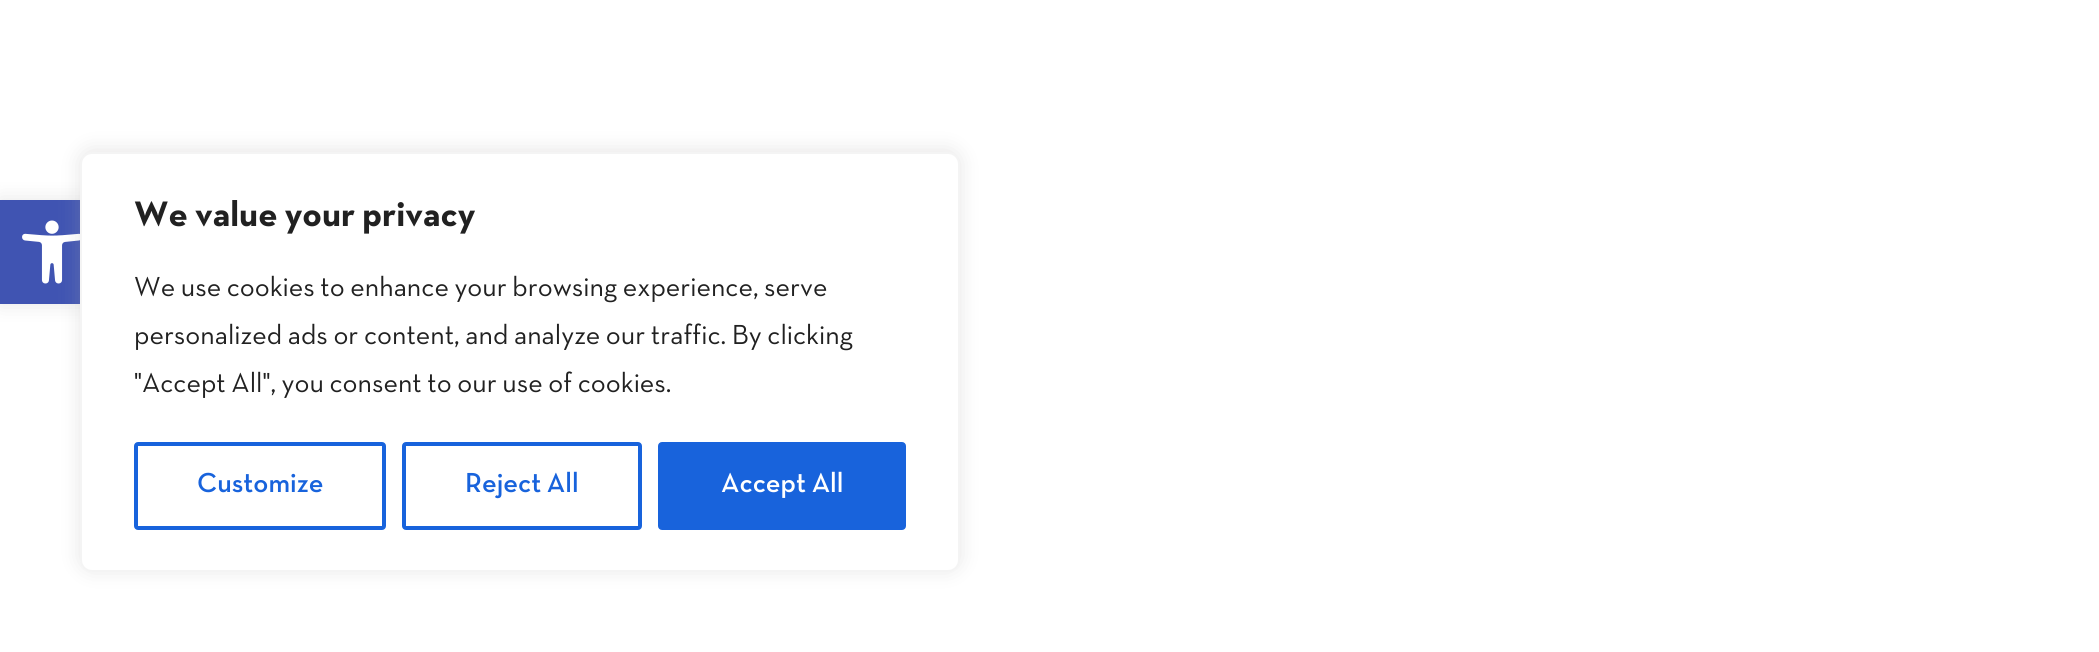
import math
import cairo

surface = cairo.ImageSurface(cairo.FORMAT_RGB24, 2099, 652)
ctx = cairo.Context(surface)
options = cairo.FontOptions()
options.set_hint_metrics(cairo.HINT_METRICS_OFF)
options.set_hint_style(cairo.HINT_STYLE_NONE)
ctx.set_font_options(options)
ctx.set_miter_limit(4)


def set_color(code):
    ctx.set_source_rgb(*(v / 255 for v in bytes.fromhex(code[-6:])))


def draw_text(x, y, s, family, size, color, bold=False, italic=False):
    ctx.select_font_face(family, cairo.FONT_SLANT_ITALIC if italic else cairo.FONT_SLANT_NORMAL, cairo.FONT_WEIGHT_BOLD if bold else cairo.FONT_WEIGHT_NORMAL)
    ctx.set_font_size(size)
    set_color(color)
    ctx.move_to(x, y)
    ctx.show_text(s)


def fill_rect(x, y, w, h, color):
    set_color(color)
    ctx.rectangle(x, y, w, h)
    ctx.fill()


def rounded_rect(x, y, w, h, r):
    ctx.new_sub_path()
    for i, (u, v) in enumerate([(x + w - r, y + h - r), (x + r, y + h - r), (x + r, y + r), (x + w - r, y + r)]):
        ctx.arc(u, v, r, i * math.pi / 2, (i + 1) * math.pi / 2)
    ctx.close_path()


def draw_shadow(x, y, w, h, r, blur, alpha):
    ctx.push_group_with_content(cairo.CONTENT_ALPHA)
    ctx.set_operator(cairo.OPERATOR_SOURCE)
    for i in range(15, -16, -2):
        e = blur * i / 6
        if min(w, h) + 2 * e > 0:
            ctx.set_source_rgba(0, 0, 0, alpha * math.erfc((i - 1) / 8.5) / 2)
            rounded_rect(x - e, y - e, w + 2 * e, h + 2 * e, max(0, min(r + e + blur * .6, min(w, h) / 2 + e)))
            ctx.fill()
    ctx.mask(ctx.pop_group())


def draw_image(path, x, y, w, h):
    ctx.save()
    ctx.set_source_surface(cairo.ImageSurface.create_from_png(path), x, y)
    ctx.rectangle(x, y, w, h)
    ctx.fill()
    ctx.restore()


set_color("#ffffff")
ctx.paint()
set_color("#000000")
draw_shadow(0, 200, 104, 104, 0, 10, 0.1)
fill_rect(0, 200, 80, 104, "#4054b2")
draw_image("assets/img1.png", 22, 220, 58, 64)
set_color("#acabab")
draw_shadow(80, 150, 880, 420, 12, 10, 0.3)
set_color("#ffffff")
rounded_rect(81, 153, 878, 418, 11)
ctx.fill_preserve()
set_color("#f4f4f4")
ctx.stroke()
draw_text(134, 226, "We value your privacy", "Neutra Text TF", 36, "#212121", bold=True)
draw_text(134, 296, "We use cookies to enhance your browsing experience, serve", "Neutra Text TF", 28, "#212121")
draw_text(134, 344, "personalized ads or content, and analyze our traffic. By clicking", "Neutra Text TF", 28, "#212121")
draw_text(134, 392, "\"Accept All\", you consent to our use of cookies.", "Neutra Text TF", 28, "#212121")
rounded_rect(136, 444, 248, 84, 2)
set_color("#1863dc")
ctx.set_line_width(4)
ctx.stroke()
draw_text(197, 492, "Customize", "Neutra Text TF Medium", 28, "#1863dc")
rounded_rect(404, 444, 236, 84, 2)
ctx.stroke()
draw_text(465, 492, "Reject All", "Neutra Text TF Medium", 28, "#1863dc")
rounded_rect(660, 444, 244, 84, 2)
ctx.fill_preserve()
ctx.stroke()
draw_text(721, 492, "Accept All", "Neutra Text TF Medium", 28, "#ffffff")
surface.write_to_png("output.png")
